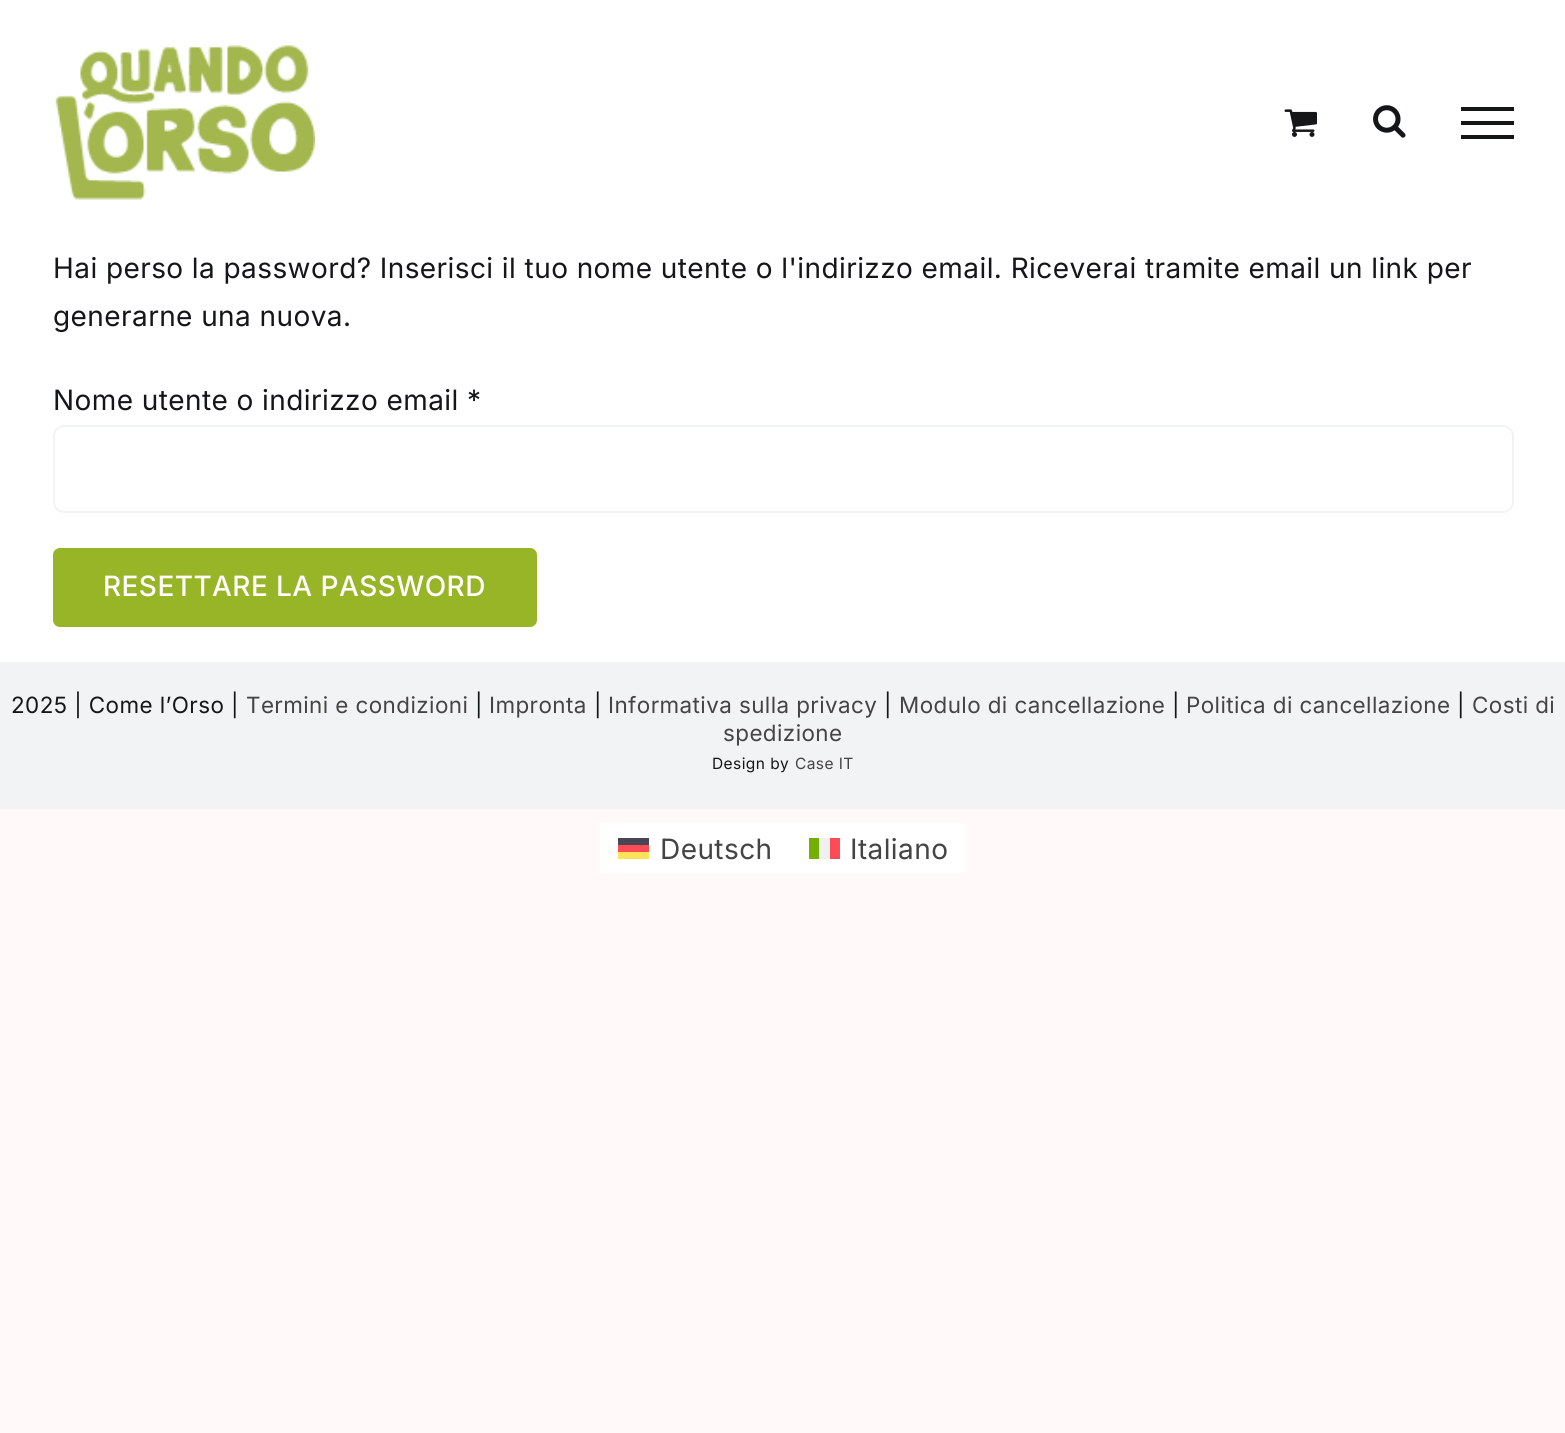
import math
import cairo

surface = cairo.ImageSurface(cairo.FORMAT_RGB24, 1565, 1433)
ctx = cairo.Context(surface)
options = cairo.FontOptions()
options.set_hint_metrics(cairo.HINT_METRICS_OFF)
options.set_hint_style(cairo.HINT_STYLE_NONE)
ctx.set_font_options(options)
ctx.set_miter_limit(4)


def set_color(code):
    ctx.set_source_rgb(*(v / 255 for v in bytes.fromhex(code[-6:])))


def draw_spaced(x, y, s, letter, word):
    ctx.move_to(x, y)
    for ch in s:
        ctx.show_text(ch)
        ctx.rel_move_to(letter + word * (ch == ' '), 0)


def fill_rect(x, y, w, h, color):
    set_color(color)
    ctx.rectangle(x, y, w, h)
    ctx.fill()


def rounded_rect(x, y, w, h, r):
    ctx.new_sub_path()
    for i, (u, v) in enumerate([(x + w - r, y + h - r), (x + r, y + h - r), (x + r, y + r), (x + w - r, y + r)]):
        ctx.arc(u, v, r, i * math.pi / 2, (i + 1) * math.pi / 2)
    ctx.close_path()


def draw_image(path, x, y, w, h):
    ctx.save()
    ctx.set_source_surface(cairo.ImageSurface.create_from_png(path), x, y)
    ctx.rectangle(x, y, w, h)
    ctx.fill()
    ctx.restore()


set_color("#fff9f9")
ctx.paint()
fill_rect(0, 0, 1565, 662, "#ffffff")
draw_image("assets/img1.png", 55, 45, 260, 155)
draw_image("assets/img2.png", 1284, 109, 33, 28)
draw_image("assets/img3.png", 1373, 105, 33, 33)
fill_rect(1461, 107, 53, 4, "#141617")
fill_rect(1461, 121, 53, 4, "#141617")
fill_rect(1461, 135, 53, 4, "#141617")
ctx.select_font_face("Inter")
ctx.set_font_size(28)
draw_spaced(53, 278, "Hai perso la password? Inserisci il tuo nome utente o l'indirizzo email. Riceverai tramite email un link per", 0.42, 0)
draw_spaced(53, 326, "generarne una nuova.", 0.42, 0)
draw_spaced(53, 410, "Nome utente o indirizzo email *", 0.42, 0)
rounded_rect(54, 426, 1459, 86, 10)
set_color("#f2f3f5")
ctx.stroke()
set_color("#98b427")
rounded_rect(53, 548, 484, 79, 7)
ctx.fill()
ctx.select_font_face("Inter Medium")
set_color("#ffffff")
draw_spaced(103, 596, "RESETTARE LA PASSWORD", 0.42, 0)
fill_rect(0, 662, 1565, 147, "#f2f3f5")
ctx.select_font_face("Inter")
ctx.set_font_size(22.4)
set_color("#141617")
draw_spaced(11, 713, "2025 | Come l’Orso |", 0.42, 0)
set_color("#444444")
draw_spaced(246, 713, "Termini e condizioni", 0.42, 0)
set_color("#141617")
draw_spaced(475, 713, "|", 0.42, 0)
set_color("#444444")
draw_spaced(489, 713, "Impronta", 0.42, 0)
set_color("#141617")
draw_spaced(594, 713, "|", 0.42, 0)
set_color("#444444")
draw_spaced(608, 713, "Informativa sulla privacy", 0.42, 0)
set_color("#141617")
draw_spaced(884, 713, "|", 0.42, 0)
set_color("#444444")
draw_spaced(899, 713, "Modulo di cancellazione", 0.42, 0)
set_color("#141617")
draw_spaced(1172, 713, "|", 0.42, 0)
set_color("#444444")
draw_spaced(1186, 713, "Politica di cancellazione", 0.42, 0)
set_color("#141617")
draw_spaced(1457, 713, "|", 0.42, 0)
set_color("#444444")
draw_spaced(1472, 713, "Costi di", 0.42, 0)
draw_spaced(723, 741, "spedizione", 0.42, 0)
ctx.set_font_size(15.5)
set_color("#141617")
draw_spaced(712, 769, "Design by", 0.42, 0)
set_color("#444444")
draw_spaced(795, 769, "Case IT", 0.42, 0)
fill_rect(600, 823, 366, 50, "#ffffff")
fill_rect(618, 838, 31, 7, "#464655")
ctx.set_font_size(28)
set_color("#444444")
draw_spaced(660, 859, "Deutsch", 0.42, 0)
fill_rect(618, 845, 31, 7, "#ff4b55")
fill_rect(618, 852, 31, 7, "#ffe15a")
fill_rect(809, 838, 10, 21, "#73af00")
fill_rect(819, 838, 11, 21, "#f0f0f0")
fill_rect(830, 838, 10, 21, "#ff4b55")
set_color("#444444")
draw_spaced(850, 859, "Italiano", 0.42, 0)
surface.write_to_png("output.png")
